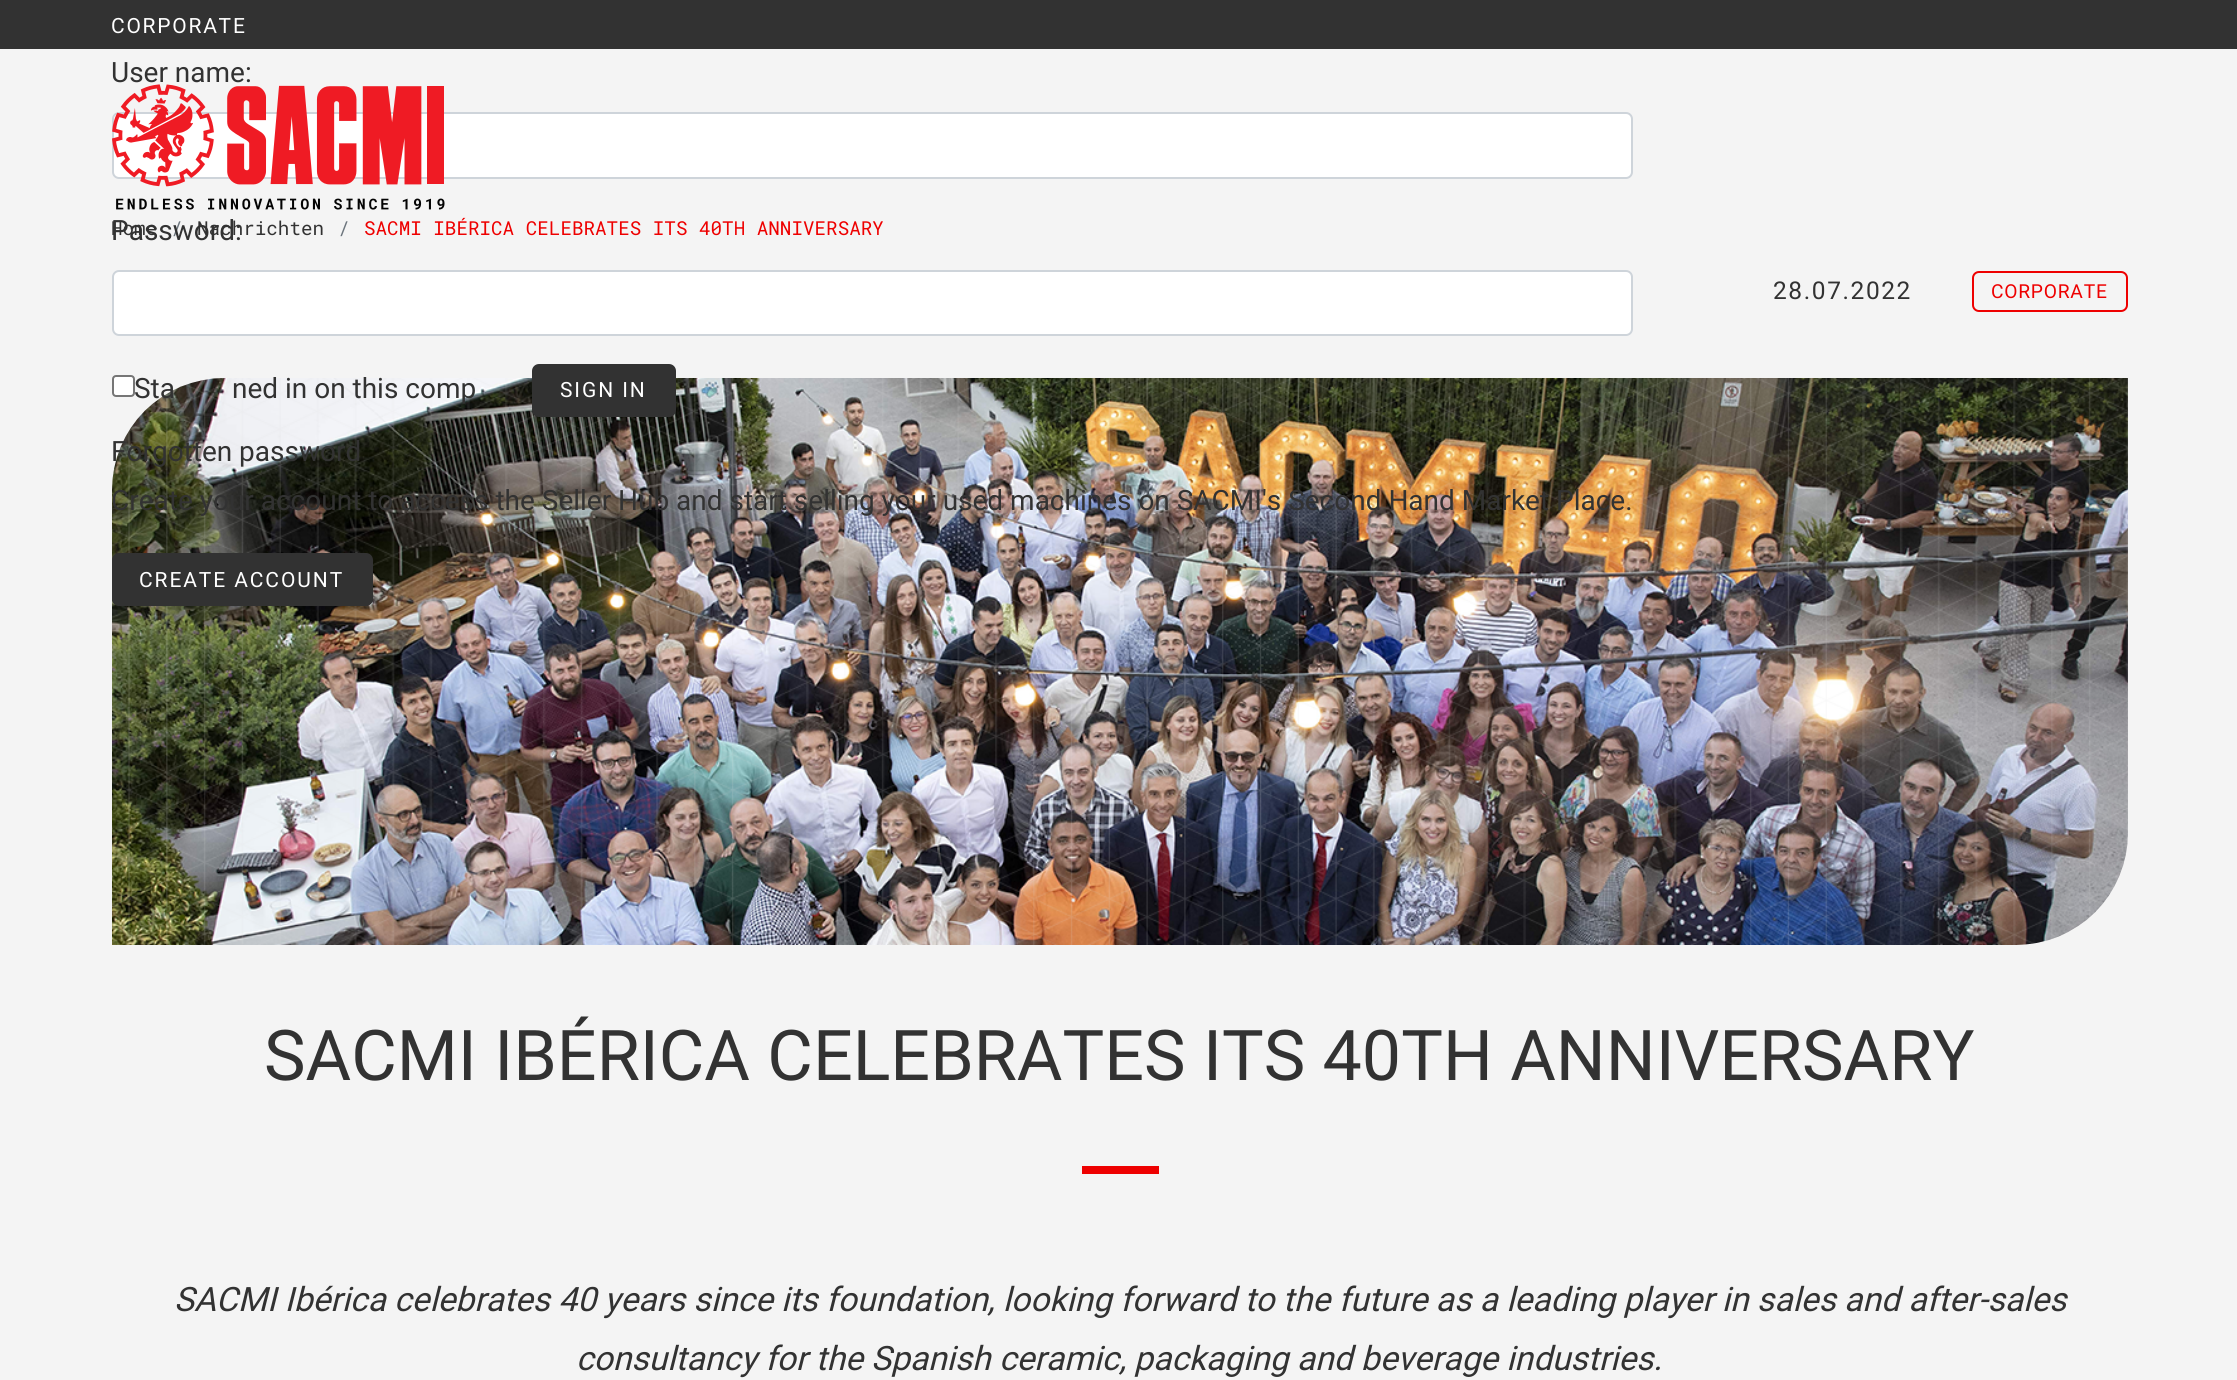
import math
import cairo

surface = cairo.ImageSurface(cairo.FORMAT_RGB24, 2237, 1380)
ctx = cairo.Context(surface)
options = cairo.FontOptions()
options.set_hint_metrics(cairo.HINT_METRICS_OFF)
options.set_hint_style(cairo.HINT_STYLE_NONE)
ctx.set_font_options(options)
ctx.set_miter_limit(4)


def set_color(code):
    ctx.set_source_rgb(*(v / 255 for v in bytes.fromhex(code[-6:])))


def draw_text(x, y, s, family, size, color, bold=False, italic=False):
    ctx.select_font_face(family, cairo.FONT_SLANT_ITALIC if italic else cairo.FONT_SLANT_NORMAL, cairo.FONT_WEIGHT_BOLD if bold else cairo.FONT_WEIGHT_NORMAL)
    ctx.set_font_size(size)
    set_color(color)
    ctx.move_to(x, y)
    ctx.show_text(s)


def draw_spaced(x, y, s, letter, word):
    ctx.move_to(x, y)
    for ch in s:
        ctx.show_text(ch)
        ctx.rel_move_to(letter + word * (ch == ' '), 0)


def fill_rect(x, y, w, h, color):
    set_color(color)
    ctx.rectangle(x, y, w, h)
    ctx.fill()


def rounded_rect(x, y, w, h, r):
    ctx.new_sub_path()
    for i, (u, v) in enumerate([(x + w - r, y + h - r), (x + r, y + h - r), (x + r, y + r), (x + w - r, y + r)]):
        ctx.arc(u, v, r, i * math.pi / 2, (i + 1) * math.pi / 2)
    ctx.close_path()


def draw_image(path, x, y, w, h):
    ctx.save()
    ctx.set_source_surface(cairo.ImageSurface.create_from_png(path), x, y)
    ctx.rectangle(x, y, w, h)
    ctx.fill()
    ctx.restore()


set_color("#f4f4f4")
ctx.paint()
fill_rect(0, 0, 2237, 49, "#323232")
ctx.select_font_face("Roboto")
ctx.set_font_size(21)
set_color("#ffffff")
draw_spaced(111, 33, "CORPORATE", 1.75, 0)
draw_text(111, 82, "User name:", "Roboto", 28, "#323232")
set_color("#ffffff")
rounded_rect(113, 113, 1519, 65, 6)
ctx.fill_preserve()
set_color("#ced4da")
ctx.stroke()
draw_text(111, 235, "Home", "Roboto Mono", 19.25, "#323232")
draw_text(171, 235, "/", "Roboto Mono", 19.25, "#6c757d")
draw_text(197, 235, "Nachrichten", "Roboto Mono", 19.25, "#323232")
draw_text(111, 240, "Password:", "Roboto", 28, "#323232")
set_color("#ffffff")
rounded_rect(113, 271, 1519, 64, 6)
ctx.fill_preserve()
set_color("#ced4da")
ctx.stroke()
draw_image("assets/img2.png", 112, 378, 2016, 567)
set_color("#ffffff")
rounded_rect(113, 376, 21, 20, 3)
ctx.fill_preserve()
set_color("#767676")
ctx.stroke()
draw_text(134, 398, "Sta", "Roboto", 28, "#323232")
draw_text(232, 398, "ned in on this comp", "Roboto", 28, "#323232")
rounded_rect(532, 364, 144, 53, 7)
ctx.fill()
ctx.set_font_size(21)
set_color("#ffffff")
draw_spaced(560, 397, "SIGN IN", 1.9, 0)
draw_text(111, 461, "Forgotten password", "Roboto", 28, "#323232")
draw_text(111, 510, "Create your account to access the Seller Hub and start selling your used machines on SACMI's Second Hand Market Place.", "Roboto", 28, "#323232")
rounded_rect(112, 553, 261, 53, 7)
ctx.fill()
ctx.set_font_size(21)
set_color("#ffffff")
draw_spaced(139, 587, "CREATE ACCOUNT", 1.9, 0)
draw_image("assets/img1.png", 112, 84, 333, 126)
draw_text(338, 235, "/", "Roboto Mono", 19.25, "#6c757d")
draw_text(364, 235, "SACMI IBÉRICA CELEBRATES ITS 40TH ANNIVERSARY", "Roboto Mono", 19.25, "#ee0000")
ctx.select_font_face("Roboto")
ctx.set_font_size(24.5)
set_color("#323232")
draw_spaced(1773, 299, "28.07.2022", 1.6, 0)
rounded_rect(1973, 272, 154, 39, 6)
set_color("#ee0000")
ctx.stroke()
ctx.set_font_size(19.25)
draw_spaced(1991, 298, "CORPORATE", 0.75, 0)
draw_text(264, 1080, "SACMI IBÉRICA CELEBRATES ITS 40TH ANNIVERSARY", "Roboto", 70, "#323232")
fill_rect(1082, 1166, 77, 8, "#ee0000")
draw_text(174, 1311, "SACMI Ibérica celebrates 40 years since its foundation, looking forward to the future as a leading player in sales and after-sales", "Roboto", 33.6, "#323232", italic=True)
draw_text(576, 1370, "consultancy for the Spanish ceramic, packaging and beverage industries.", "Roboto", 33.6, "#323232", italic=True)
surface.write_to_png("output.png")
